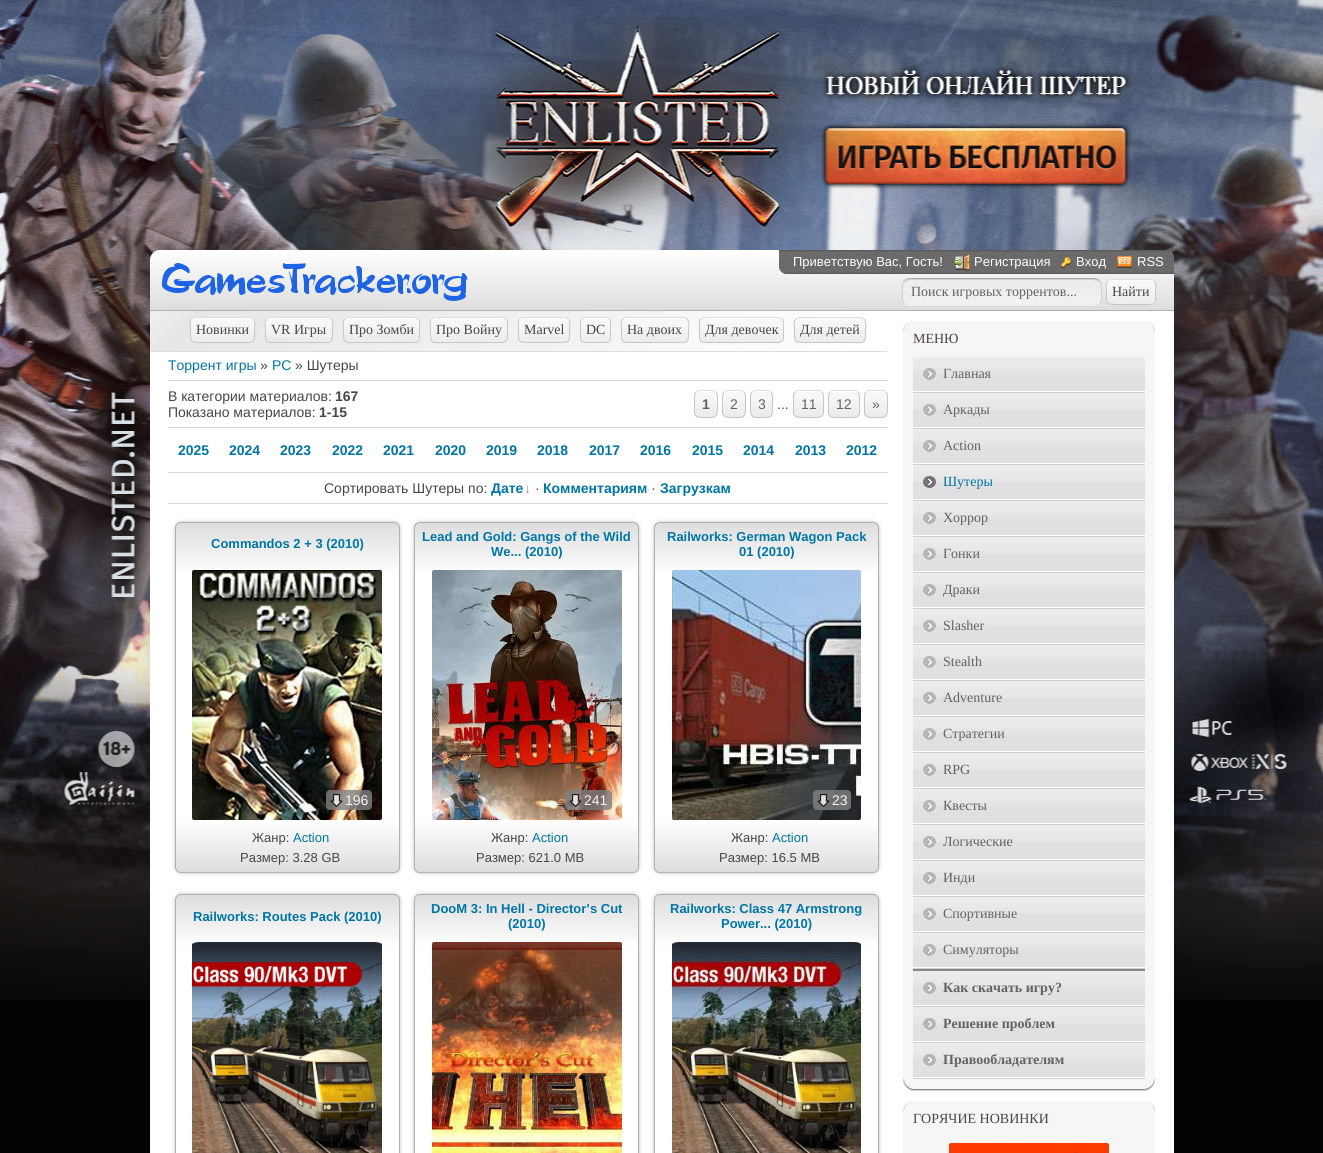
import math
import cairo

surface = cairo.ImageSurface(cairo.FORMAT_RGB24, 1323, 1153)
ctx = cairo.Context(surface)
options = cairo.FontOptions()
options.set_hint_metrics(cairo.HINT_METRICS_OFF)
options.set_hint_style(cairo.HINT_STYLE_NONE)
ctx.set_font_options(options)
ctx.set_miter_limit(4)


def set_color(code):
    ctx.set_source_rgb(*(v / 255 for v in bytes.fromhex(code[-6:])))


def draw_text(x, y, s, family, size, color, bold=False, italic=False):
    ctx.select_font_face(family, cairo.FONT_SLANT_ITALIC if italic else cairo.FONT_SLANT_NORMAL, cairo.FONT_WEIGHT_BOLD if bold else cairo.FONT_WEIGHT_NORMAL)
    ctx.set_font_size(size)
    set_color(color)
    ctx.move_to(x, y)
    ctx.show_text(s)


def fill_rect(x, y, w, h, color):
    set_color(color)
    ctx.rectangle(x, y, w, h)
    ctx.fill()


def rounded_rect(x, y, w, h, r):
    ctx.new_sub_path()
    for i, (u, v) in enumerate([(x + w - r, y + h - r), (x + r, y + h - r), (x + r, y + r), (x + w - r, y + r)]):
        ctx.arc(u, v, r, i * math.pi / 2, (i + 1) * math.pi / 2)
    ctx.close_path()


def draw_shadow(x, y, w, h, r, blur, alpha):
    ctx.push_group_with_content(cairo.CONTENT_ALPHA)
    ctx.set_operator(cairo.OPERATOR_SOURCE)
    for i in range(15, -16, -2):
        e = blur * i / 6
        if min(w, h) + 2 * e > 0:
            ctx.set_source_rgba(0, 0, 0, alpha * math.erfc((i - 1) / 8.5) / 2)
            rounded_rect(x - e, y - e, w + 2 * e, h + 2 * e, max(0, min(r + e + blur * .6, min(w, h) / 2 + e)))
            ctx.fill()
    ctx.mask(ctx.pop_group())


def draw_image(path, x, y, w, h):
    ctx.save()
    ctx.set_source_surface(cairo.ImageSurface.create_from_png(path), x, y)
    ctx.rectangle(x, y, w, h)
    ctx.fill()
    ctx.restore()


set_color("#030303")
ctx.paint()
draw_image("assets/img1.png", 0, 0, 1323, 1000)
set_color("#ffffff")
rounded_rect(150, 250, 1024, 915, 12)
ctx.fill()
gradient = cairo.LinearGradient(662, 250, 662, 310)
gradient.add_color_stop_rgba(0, 1, 1, 1, 1)
gradient.add_color_stop_rgba(1, 0.867, 0.867, 0.867, 1)
ctx.set_source(gradient)
ctx.new_path()
ctx.move_to(160, 250)
ctx.line_to(1164, 250)
ctx.curve_to(1169.5, 250, 1174, 254.5, 1174, 260)
ctx.line_to(1174, 310)
ctx.line_to(150, 310)
ctx.line_to(150, 260)
ctx.curve_to(150, 254.5, 154.5, 250, 160, 250)
ctx.close_path()
ctx.fill()
fill_rect(150, 310, 1024, 1, "#b1b1b1")
draw_image("assets/img2.png", 162, 263, 306, 38)
set_color("#6b6b70")
ctx.new_path()
ctx.move_to(779, 250)
ctx.line_to(1166, 250)
ctx.curve_to(1170.5, 250, 1174, 253.5, 1174, 258)
ctx.line_to(1174, 274)
ctx.line_to(787, 274)
ctx.curve_to(782.5, 274, 779, 270.5, 779, 266)
ctx.close_path()
ctx.fill()
draw_image("assets/img3.png", 779, 250, 395, 24)
draw_text(793, 266, "Приветствую Вас, Гость!", "Liberation Sans", 13, "#ffffff")
draw_image("assets/img4.png", 954, 254, 16, 17)
draw_text(974, 266, "Регистрация", "Liberation Sans", 13, "#ffffff")
draw_image("assets/img5.png", 1061, 257, 10, 11)
draw_text(1076, 266, "Вход", "Liberation Sans", 13, "#ffffff")
draw_image("assets/img6.png", 1117, 256, 15, 12)
draw_text(1137, 266, "RSS", "Liberation Sans", 13, "#ffffff")
draw_image("assets/img7.png", 902, 279, 200, 27)
set_color("#cdcdcd")
ctx.new_path()
ctx.move_to(910, 280)
ctx.line_to(1094, 280)
ctx.curve_to(1098, 280, 1101, 283, 1101, 287)
ctx.line_to(1101, 286)
ctx.curve_to(1101, 282, 1098, 279, 1094, 279)
ctx.line_to(910, 279)
ctx.curve_to(906, 279, 903, 282, 903, 286)
ctx.line_to(903, 287)
ctx.curve_to(903, 283, 906, 280, 910, 280)
ctx.close_path()
ctx.fill()
ctx.new_path()
ctx.move_to(904.5, 280.5)
ctx.curve_to(906, 279.5, 908, 278.5, 910, 278.5)
ctx.line_to(1094, 278.5)
ctx.curve_to(1096, 278.5, 1098, 279.5, 1099.5, 280.5)
set_color("#acacac")
ctx.set_line_width(1)
ctx.stroke()
ctx.new_path()
ctx.move_to(1099.5, 280.5)
ctx.curve_to(1102.5, 283.5, 1101.5, 288, 1101.5, 292)
ctx.curve_to(1101.5, 296, 1102.5, 300.5, 1099.5, 303.5)
set_color("#d0d0d0")
ctx.stroke()
ctx.new_path()
ctx.move_to(1099.5, 303.5)
ctx.curve_to(1098, 304.5, 1096, 305.5, 1094, 305.5)
ctx.line_to(910, 305.5)
ctx.curve_to(908, 305.5, 906, 304.5, 904.5, 303.5)
set_color("#e9e9e9")
ctx.stroke()
ctx.new_path()
ctx.move_to(904.5, 303.5)
ctx.curve_to(901.5, 300.5, 902.5, 296, 902.5, 292)
ctx.curve_to(902.5, 288, 901.5, 283.5, 904.5, 280.5)
set_color("#d0d0d0")
ctx.stroke()
draw_text(911, 296, "Поиск игровых торрентов...", "Liberation Serif", 14, "#636363")
draw_image("assets/img8.png", 1106, 280, 50, 25)
ctx.new_path()
ctx.move_to(1108, 281)
ctx.curve_to(1108.5, 280, 1110, 279.5, 1111, 279.5)
ctx.line_to(1151, 279.5)
ctx.curve_to(1152, 279.5, 1153.5, 280, 1154, 281)
set_color("#dddddd")
ctx.stroke()
ctx.new_path()
ctx.move_to(1154, 281)
ctx.curve_to(1157, 283.5, 1155.5, 289, 1155.5, 292)
ctx.curve_to(1155.5, 304, 1156.5, 304.5, 1144.5, 304.5)
ctx.line_to(1117.5, 304.5)
ctx.curve_to(1105.5, 304.5, 1106.5, 304, 1106.5, 292)
ctx.curve_to(1106.5, 289, 1105, 283.5, 1108, 281)
set_color("#c6c6c6")
ctx.stroke()
draw_text(1112, 296, "Найти", "Liberation Serif", 14, "#474747")
gradient = cairo.LinearGradient(324, 137, 713, 525)
gradient.add_color_stop_rgba(0, 0.941, 0.941, 0.941, 1)
gradient.add_color_stop_rgba(0.06, 0.906, 0.906, 0.906, 1)
gradient.add_color_stop_rgba(0.63, 0.957, 0.957, 0.957, 1)
gradient.add_color_stop_rgba(0.74, 0.976, 0.976, 0.976, 1)
gradient.add_color_stop_rgba(1, 1, 1, 1, 1)
ctx.set_source(gradient)
ctx.rectangle(150, 311, 692, 40)
ctx.fill()
fill_rect(150, 351, 737, 1, "#dddddd")
draw_image("assets/img9.png", 190, 318, 65, 24)
ctx.new_path()
ctx.move_to(192, 319)
ctx.curve_to(192.5, 318, 194, 317.5, 195, 317.5)
ctx.line_to(250, 317.5)
ctx.curve_to(251, 317.5, 252.5, 318, 253, 319)
ctx.stroke()
ctx.new_path()
ctx.move_to(253, 319)
ctx.curve_to(256, 321.5, 254.5, 327, 254.5, 330)
ctx.curve_to(254.5, 343.5, 255, 342.5, 241, 342.5)
ctx.line_to(204, 342.5)
ctx.curve_to(190, 342.5, 190.5, 343.5, 190.5, 330)
ctx.curve_to(190.5, 327, 189, 321.5, 192, 319)
set_color("#c6c6c6")
ctx.stroke()
draw_text(196, 334, "Новинки", "Liberation Serif", 14, "#474747")
draw_image("assets/img10.png", 265, 318, 68, 20)
ctx.new_path()
ctx.move_to(267, 319)
ctx.curve_to(267.5, 318, 269, 317.5, 270, 317.5)
ctx.line_to(328, 317.5)
ctx.curve_to(329, 317.5, 330.5, 318, 331, 319)
set_color("#dddddd")
ctx.stroke()
ctx.new_path()
ctx.move_to(331, 319)
ctx.curve_to(334, 321.5, 332.5, 329.5, 332.5, 332.5)
ctx.curve_to(332.5, 344.5, 330.5, 342.5, 318.5, 342.5)
ctx.line_to(279.5, 342.5)
ctx.curve_to(265, 342.5, 265.5, 344, 265.5, 330)
ctx.curve_to(265.5, 327, 264, 321.5, 267, 319)
set_color("#c6c6c6")
ctx.stroke()
draw_text(271, 334, "VR Игры", "Liberation Serif", 14, "#474747")
draw_image("assets/img11.png", 343, 318, 77, 17)
ctx.new_path()
ctx.move_to(345, 319)
ctx.line_to(347.5, 317.5)
ctx.line_to(415.5, 317.5)
ctx.line_to(418, 319)
set_color("#dddddd")
ctx.stroke()
ctx.new_path()
ctx.move_to(418, 319)
ctx.curve_to(420.5, 321, 419.5, 324.5, 419.5, 327.5)
ctx.curve_to(419.5, 344, 421.5, 342.5, 404, 342.5)
ctx.line_to(359, 342.5)
ctx.curve_to(343.5, 342.5, 343.5, 344.5, 343.5, 330)
ctx.curve_to(343.5, 327, 342, 321.5, 345, 319)
set_color("#c6c6c6")
ctx.stroke()
draw_text(349, 334, "Про Зомби", "Liberation Serif", 14, "#474747")
draw_image("assets/img12.png", 430, 318, 78, 25)
ctx.new_path()
ctx.move_to(432, 319)
ctx.line_to(434.5, 317.5)
ctx.line_to(503.5, 317.5)
ctx.line_to(506, 319)
set_color("#dddddd")
ctx.stroke()
ctx.new_path()
ctx.move_to(506, 319)
ctx.curve_to(508.5, 321, 507.5, 324.5, 507.5, 327.5)
ctx.curve_to(507.5, 344, 509, 342.5, 491.5, 342.5)
ctx.line_to(446.5, 342.5)
ctx.curve_to(430.5, 342.5, 430.5, 344.5, 430.5, 330)
ctx.curve_to(430.5, 327, 429, 321.5, 432, 319)
set_color("#c6c6c6")
ctx.stroke()
draw_text(436, 334, "Про Войну", "Liberation Serif", 14, "#474747")
draw_image("assets/img13.png", 518, 318, 52, 25)
ctx.new_path()
ctx.move_to(520, 319)
ctx.curve_to(520.5, 318, 522, 317.5, 523, 317.5)
ctx.line_to(565, 317.5)
ctx.curve_to(566, 317.5, 567.5, 318, 568, 319)
set_color("#dddddd")
ctx.stroke()
ctx.new_path()
ctx.move_to(568, 319)
ctx.curve_to(571, 321.5, 569.5, 327, 569.5, 330)
ctx.curve_to(569.5, 342, 570.5, 342.5, 558, 342.5)
ctx.line_to(530, 342.5)
ctx.curve_to(517.5, 342.5, 518.5, 342, 518.5, 330)
ctx.curve_to(518.5, 327, 517, 321.5, 520, 319)
set_color("#c6c6c6")
ctx.stroke()
draw_text(524, 334, "Marvel", "Liberation Serif", 14, "#474747")
draw_image("assets/img14.png", 580, 318, 31, 25)
ctx.new_path()
ctx.move_to(582, 319)
ctx.curve_to(582.5, 318, 584, 317.5, 585, 317.5)
ctx.line_to(606, 317.5)
ctx.curve_to(607, 317.5, 608.5, 318, 609, 319)
set_color("#dddddd")
ctx.stroke()
ctx.new_path()
ctx.move_to(609, 319)
ctx.curve_to(611, 320.5, 610.5, 322.5, 610.5, 324.5)
ctx.line_to(610.5, 339)
ctx.curve_to(609.5, 343, 605.5, 342.5, 602.5, 342.5)
ctx.line_to(588.5, 342.5)
ctx.curve_to(585.5, 342.5, 581.5, 343, 580.5, 339)
ctx.line_to(580.5, 324.5)
ctx.curve_to(580.5, 322.5, 580, 320.5, 582, 319)
set_color("#c6c6c6")
ctx.stroke()
draw_text(586, 334, "DC", "Liberation Serif", 14, "#474747")
draw_image("assets/img15.png", 621, 318, 68, 25)
ctx.new_path()
ctx.move_to(623, 319)
ctx.curve_to(623.5, 318, 625, 317.5, 626, 317.5)
ctx.line_to(684, 317.5)
ctx.curve_to(685, 317.5, 686.5, 318, 687, 319)
set_color("#dddddd")
ctx.stroke()
ctx.new_path()
ctx.move_to(687, 319)
ctx.curve_to(690, 321.5, 688.5, 329.5, 688.5, 332.5)
ctx.curve_to(688.5, 344.5, 686.5, 342.5, 674.5, 342.5)
ctx.line_to(635.5, 342.5)
ctx.curve_to(621, 342.5, 621.5, 344, 621.5, 330)
ctx.curve_to(621.5, 327, 620, 321.5, 623, 319)
set_color("#c6c6c6")
ctx.stroke()
draw_text(627, 334, "На двоих", "Liberation Serif", 14, "#474747")
draw_image("assets/img16.png", 699, 318, 85, 25)
ctx.new_path()
ctx.move_to(701, 319)
ctx.line_to(703.5, 317.5)
ctx.line_to(779.5, 317.5)
ctx.line_to(782, 319)
set_color("#dddddd")
ctx.stroke()
ctx.new_path()
ctx.move_to(782, 319)
ctx.curve_to(784.5, 321, 783.5, 324.5, 783.5, 327.5)
ctx.curve_to(783.5, 344.5, 785, 342.5, 766.5, 342.5)
ctx.line_to(716.5, 342.5)
ctx.curve_to(698, 342.5, 699.5, 344.5, 699.5, 327.5)
ctx.curve_to(699.5, 324.5, 698.5, 321, 701, 319)
set_color("#c6c6c6")
ctx.stroke()
draw_text(705, 334, "Для девочек", "Liberation Serif", 14, "#474747")
draw_image("assets/img17.png", 794, 319, 72, 24)
ctx.new_path()
ctx.move_to(796, 319)
ctx.line_to(798.5, 317.5)
ctx.line_to(861.5, 317.5)
ctx.line_to(864, 319)
set_color("#dddddd")
ctx.stroke()
ctx.new_path()
ctx.move_to(864, 319)
ctx.curve_to(867, 321.5, 865.5, 329.5, 865.5, 332.5)
ctx.curve_to(865.5, 345, 863.5, 342.5, 850.5, 342.5)
ctx.line_to(809.5, 342.5)
ctx.curve_to(794.5, 342.5, 794.5, 344, 794.5, 330)
ctx.curve_to(794.5, 327, 793, 321.5, 796, 319)
set_color("#c6c6c6")
ctx.stroke()
draw_text(800, 334, "Для детей", "Liberation Serif", 14, "#474747")
draw_text(168, 370, "Торрент игры", "Liberation Sans", 14, "#0076a6")
draw_text(260, 370, "»", "Liberation Sans", 14, "#474747")
draw_text(272, 370, "PC", "Liberation Sans", 14, "#0076a6")
draw_text(295, 370, "» Шутеры", "Liberation Sans", 14, "#474747")
fill_rect(168, 380, 720, 1, "#d6d6d6")
draw_text(168, 401, "В категории материалов:", "Liberation Sans", 14, "#474747")
draw_text(335, 401, "167", "Liberation Sans", 14, "#474747", bold=True)
draw_text(168, 417, "Показано материалов:", "Liberation Sans", 14, "#474747")
draw_text(319, 417, "1-15", "Liberation Sans", 14, "#474747", bold=True)
draw_image("assets/img18.png", 694, 392, 24, 26)
ctx.new_path()
ctx.move_to(696, 392)
ctx.curve_to(698.5, 389.5, 703, 390.5, 706, 390.5)
ctx.curve_to(709, 390.5, 713.5, 389.5, 716, 392)
set_color("#dddddd")
ctx.stroke()
ctx.new_path()
ctx.move_to(716, 392)
ctx.curve_to(717.5, 394, 717.5, 396, 717.5, 398.5)
ctx.line_to(717.5, 409.5)
ctx.curve_to(717.5, 413, 717, 416.5, 713, 417.5)
ctx.line_to(706, 417.5)
ctx.curve_to(702, 417.5, 695, 418.5, 694.5, 412.5)
ctx.line_to(694.5, 398.5)
ctx.curve_to(694.5, 396, 694.5, 394, 696, 392)
set_color("#c6c6c6")
ctx.stroke()
draw_text(702, 409, "1", "Liberation Sans", 14, "#636363", bold=True)
draw_image("assets/img18.png", 722, 392, 24, 26)
ctx.new_path()
ctx.move_to(724, 392)
ctx.curve_to(726.5, 389.5, 731, 390.5, 734, 390.5)
ctx.curve_to(737, 390.5, 741.5, 389.5, 744, 392)
set_color("#dddddd")
ctx.stroke()
ctx.new_path()
ctx.move_to(744, 392)
ctx.curve_to(745.5, 394, 745.5, 396, 745.5, 398.5)
ctx.line_to(745.5, 409.5)
ctx.curve_to(745.5, 413, 745, 416.5, 741, 417.5)
ctx.line_to(734, 417.5)
ctx.curve_to(730, 417.5, 723, 418.5, 722.5, 412.5)
ctx.line_to(722.5, 398.5)
ctx.curve_to(722.5, 396, 722.5, 394, 724, 392)
set_color("#c6c6c6")
ctx.stroke()
draw_text(730, 409, "2", "Liberation Sans", 14, "#636363")
draw_image("assets/img19.png", 750, 392, 23, 26)
ctx.new_path()
ctx.move_to(752, 392)
ctx.curve_to(754.5, 389.5, 758.5, 390.5, 761.5, 390.5)
ctx.curve_to(764.5, 390.5, 768.5, 389.5, 771, 392)
set_color("#dddddd")
ctx.stroke()
ctx.new_path()
ctx.move_to(771, 392)
ctx.curve_to(772.5, 394, 772.5, 396, 772.5, 398.5)
ctx.line_to(772.5, 406.5)
ctx.curve_to(772.5, 417, 772, 417.5, 761.5, 417.5)
ctx.line_to(755, 417.5)
ctx.curve_to(751, 416.5, 750.5, 413, 750.5, 409.5)
ctx.line_to(750.5, 398.5)
ctx.curve_to(750.5, 396, 750.5, 394, 752, 392)
set_color("#c6c6c6")
ctx.stroke()
draw_text(758, 409, "3", "Liberation Sans", 14, "#636363")
draw_text(777, 409, "...", "Liberation Sans", 14, "#474747")
draw_image("assets/img20.png", 793, 392, 31, 26)
ctx.new_path()
ctx.move_to(795, 392)
ctx.curve_to(796, 391, 797.5, 390.5, 799, 390.5)
ctx.line_to(818, 390.5)
ctx.curve_to(819.5, 390.5, 821, 391, 822, 392)
set_color("#dddddd")
ctx.stroke()
ctx.new_path()
ctx.move_to(822, 392)
ctx.curve_to(823.5, 394, 823.5, 396, 823.5, 398.5)
ctx.line_to(823.5, 412.5)
ctx.curve_to(823, 417.5, 818.5, 417.5, 815, 417.5)
ctx.line_to(802, 417.5)
ctx.curve_to(798.5, 417.5, 794.5, 417.5, 793.5, 413)
ctx.line_to(793.5, 398.5)
ctx.curve_to(793.5, 396, 793.5, 394, 795, 392)
set_color("#c6c6c6")
ctx.stroke()
draw_text(801, 409, "11", "Liberation Sans", 14, "#636363")
draw_image("assets/img21.png", 828, 392, 32, 26)
ctx.new_path()
ctx.move_to(830, 392)
ctx.curve_to(831, 391, 832.5, 390.5, 834, 390.5)
ctx.line_to(854, 390.5)
ctx.curve_to(855.5, 390.5, 857, 391, 858, 392)
set_color("#dddddd")
ctx.stroke()
ctx.new_path()
ctx.move_to(858, 392)
ctx.curve_to(859.5, 394, 859.5, 396, 859.5, 398.5)
ctx.line_to(859.5, 412.5)
ctx.curve_to(859, 417.5, 854.5, 417.5, 850.5, 417.5)
ctx.line_to(837.5, 417.5)
ctx.curve_to(833.5, 417.5, 829, 417.5, 828.5, 412.5)
ctx.line_to(828.5, 398.5)
ctx.curve_to(828.5, 396, 828.5, 394, 830, 392)
set_color("#c6c6c6")
ctx.stroke()
draw_text(836, 409, "12", "Liberation Sans", 14, "#636363")
draw_image("assets/img18.png", 864, 392, 24, 26)
ctx.new_path()
ctx.move_to(866, 392)
ctx.curve_to(868.5, 389.5, 873, 390.5, 876, 390.5)
ctx.curve_to(879, 390.5, 883.5, 389.5, 886, 392)
set_color("#dddddd")
ctx.stroke()
ctx.new_path()
ctx.move_to(886, 392)
ctx.curve_to(887.5, 394, 887.5, 396, 887.5, 398.5)
ctx.line_to(887.5, 409.5)
ctx.curve_to(887.5, 413, 887, 416.5, 883, 417.5)
ctx.line_to(876, 417.5)
ctx.curve_to(872, 417.5, 865, 418.5, 864.5, 412.5)
ctx.line_to(864.5, 398.5)
ctx.curve_to(864.5, 396, 864.5, 394, 866, 392)
set_color("#c6c6c6")
ctx.stroke()
draw_text(872, 409, "»", "Liberation Sans", 14, "#636363")
fill_rect(168, 427, 720, 1, "#d6d6d6")
draw_text(178, 455, "2025", "Liberation Sans", 14, "#0076a6", bold=True)
draw_text(229, 455, "2024", "Liberation Sans", 14, "#0076a6", bold=True)
draw_text(280, 455, "2023", "Liberation Sans", 14, "#0076a6", bold=True)
draw_text(332, 455, "2022", "Liberation Sans", 14, "#0076a6", bold=True)
draw_text(383, 455, "2021", "Liberation Sans", 14, "#0076a6", bold=True)
draw_text(435, 455, "2020", "Liberation Sans", 14, "#0076a6", bold=True)
draw_text(486, 455, "2019", "Liberation Sans", 14, "#0076a6", bold=True)
draw_text(537, 455, "2018", "Liberation Sans", 14, "#0076a6", bold=True)
draw_text(589, 455, "2017", "Liberation Sans", 14, "#0076a6", bold=True)
draw_text(640, 455, "2016", "Liberation Sans", 14, "#0076a6", bold=True)
draw_text(692, 455, "2015", "Liberation Sans", 14, "#0076a6", bold=True)
draw_text(743, 455, "2014", "Liberation Sans", 14, "#0076a6", bold=True)
draw_text(795, 455, "2013", "Liberation Sans", 14, "#0076a6", bold=True)
draw_text(846, 455, "2012", "Liberation Sans", 14, "#0076a6", bold=True)
fill_rect(168, 472, 720, 1, "#d6d6d6")
draw_text(324, 493, "Сортировать Шутеры по:", "Liberation Sans", 14, "#474747")
draw_text(491, 493, "Дате", "Liberation Sans", 14, "#0076a6", bold=True)
draw_text(524, 493, "↓", "Liberation Sans", 14, "#a0a0a0", bold=True)
draw_text(535, 493, "·", "Liberation Sans", 14, "#474747")
draw_text(543, 493, "Комментариям", "Liberation Sans", 14, "#0076a6", bold=True)
draw_text(651, 493, "·", "Liberation Sans", 14, "#474747")
draw_text(660, 493, "Загрузкам", "Liberation Sans", 14, "#0076a6", bold=True)
fill_rect(168, 503, 720, 1, "#d6d6d6")
set_color("#323232")
draw_shadow(175, 522, 225, 351, 6, 2, 0.3)
ctx.save()
rounded_rect(175, 522, 225, 351, 6)
ctx.clip()
gradient = cairo.LinearGradient(288, 523, 288, 872)
gradient.add_color_stop_rgba(0, 0.867, 0.867, 0.867, 1)
gradient.add_color_stop_rgba(0.15, 1, 1, 1, 1)
gradient.add_color_stop_rgba(0.85, 1, 1, 1, 1)
gradient.add_color_stop_rgba(1, 0.867, 0.867, 0.867, 1)
ctx.set_source(gradient)
ctx.rectangle(175, 523, 225, 349)
ctx.fill()
ctx.restore()
rounded_rect(175.5, 522.5, 224, 350, 5.5)
set_color("#b1b1b1")
ctx.stroke()
draw_text(211, 548, "Commandos 2 + 3 (2010)", "Liberation Sans", 13, "#0076a6", bold=True)
draw_image("assets/img22.png", 192, 570, 190, 250)
ctx.set_source_rgba(0.502, 0.502, 0.502, 0.81)
rounded_rect(326, 790, 46, 20, 4)
ctx.fill()
draw_image("assets/img23.png", 330, 794, 13, 13)
draw_text(345, 805, "196", "Liberation Sans", 14, "#f6f6f6")
draw_text(252, 842, "Жанр:", "Liberation Sans", 13, "#474747")
draw_text(293, 842, "Action", "Liberation Sans", 13, "#0076a6")
draw_text(240, 862, "Размер: 3.28 GB", "Liberation Sans", 13, "#474747")
set_color("#323232")
draw_shadow(414, 522, 225, 351, 6, 2, 0.3)
ctx.save()
rounded_rect(414, 522, 225, 351, 6)
ctx.clip()
gradient = cairo.LinearGradient(527, 523, 527, 872)
gradient.add_color_stop_rgba(0, 0.867, 0.867, 0.867, 1)
gradient.add_color_stop_rgba(0.15, 1, 1, 1, 1)
gradient.add_color_stop_rgba(0.85, 1, 1, 1, 1)
gradient.add_color_stop_rgba(1, 0.867, 0.867, 0.867, 1)
ctx.set_source(gradient)
ctx.rectangle(414, 523, 225, 349)
ctx.fill()
ctx.restore()
rounded_rect(414.5, 522.5, 224, 350, 5.5)
set_color("#b1b1b1")
ctx.stroke()
draw_text(422, 541, "Lead and Gold: Gangs of the Wild", "Liberation Sans", 13, "#0076a6", bold=True)
draw_text(491, 556, "We... (2010)", "Liberation Sans", 13, "#0076a6", bold=True)
draw_image("assets/img24.png", 432, 570, 190, 250)
ctx.set_source_rgba(0.502, 0.502, 0.502, 0.81)
rounded_rect(565, 790, 47, 20, 4)
ctx.fill()
draw_image("assets/img25.png", 569, 794, 13, 13)
draw_text(584, 805, "241", "Liberation Sans", 14, "#f6f6f6")
draw_text(491, 842, "Жанр:", "Liberation Sans", 13, "#474747")
draw_text(532, 842, "Action", "Liberation Sans", 13, "#0076a6")
draw_text(476, 862, "Размер: 621.0 MB", "Liberation Sans", 13, "#474747")
set_color("#323232")
draw_shadow(654, 522, 225, 351, 6, 2, 0.3)
ctx.save()
rounded_rect(654, 522, 225, 351, 6)
ctx.clip()
gradient = cairo.LinearGradient(767, 523, 767, 872)
gradient.add_color_stop_rgba(0, 0.867, 0.867, 0.867, 1)
gradient.add_color_stop_rgba(0.15, 1, 1, 1, 1)
gradient.add_color_stop_rgba(0.85, 1, 1, 1, 1)
gradient.add_color_stop_rgba(1, 0.867, 0.867, 0.867, 1)
ctx.set_source(gradient)
ctx.rectangle(654, 523, 225, 349)
ctx.fill()
ctx.restore()
rounded_rect(654.5, 522.5, 224, 350, 5.5)
set_color("#b1b1b1")
ctx.stroke()
draw_text(667, 541, "Railworks: German Wagon Pack", "Liberation Sans", 13, "#0076a6", bold=True)
draw_text(739, 556, "01 (2010)", "Liberation Sans", 13, "#0076a6", bold=True)
draw_image("assets/img26.png", 672, 570, 189, 250)
ctx.set_source_rgba(0.502, 0.502, 0.502, 0.81)
rounded_rect(813, 790, 38, 20, 4)
ctx.fill()
draw_image("assets/img27.png", 817, 794, 13, 13)
draw_text(832, 805, "23", "Liberation Sans", 14, "#f6f6f6")
draw_text(731, 842, "Жанр:", "Liberation Sans", 13, "#474747")
draw_text(772, 842, "Action", "Liberation Sans", 13, "#0076a6")
draw_text(719, 862, "Размер: 16.5 MB", "Liberation Sans", 13, "#474747")
set_color("#323232")
draw_shadow(175, 894, 225, 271, 6, 2, 0.3)
ctx.save()
rounded_rect(175, 894, 225, 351, 6)
ctx.clip()
gradient = cairo.LinearGradient(288, 895, 288, 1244)
gradient.add_color_stop_rgba(0, 0.867, 0.867, 0.867, 1)
gradient.add_color_stop_rgba(0.15, 1, 1, 1, 1)
gradient.add_color_stop_rgba(0.85, 1, 1, 1, 1)
gradient.add_color_stop_rgba(1, 0.867, 0.867, 0.867, 1)
ctx.set_source(gradient)
ctx.rectangle(175, 895, 225, 258)
ctx.fill()
ctx.restore()
rounded_rect(175.5, 894.5, 224, 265, 5.5)
set_color("#b1b1b1")
ctx.stroke()
draw_text(193, 921, "Railworks: Routes Pack (2010)", "Liberation Sans", 13, "#0076a6", bold=True)
draw_image("assets/img28.png", 192, 942, 190, 211)
set_color("#323232")
draw_shadow(414, 894, 225, 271, 6, 2, 0.3)
ctx.save()
rounded_rect(414, 894, 225, 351, 6)
ctx.clip()
gradient = cairo.LinearGradient(527, 895, 527, 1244)
gradient.add_color_stop_rgba(0, 0.867, 0.867, 0.867, 1)
gradient.add_color_stop_rgba(0.15, 1, 1, 1, 1)
gradient.add_color_stop_rgba(0.85, 1, 1, 1, 1)
gradient.add_color_stop_rgba(1, 0.867, 0.867, 0.867, 1)
ctx.set_source(gradient)
ctx.rectangle(414, 895, 225, 258)
ctx.fill()
ctx.restore()
rounded_rect(414.5, 894.5, 224, 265, 5.5)
set_color("#b1b1b1")
ctx.stroke()
draw_text(431, 913, "DooM 3: In Hell - Director’s Cut", "Liberation Sans", 13, "#0076a6", bold=True)
draw_text(508, 928, "(2010)", "Liberation Sans", 13, "#0076a6", bold=True)
draw_image("assets/img29.png", 432, 942, 190, 211)
set_color("#323232")
draw_shadow(654, 894, 225, 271, 6, 2, 0.3)
ctx.save()
rounded_rect(654, 894, 225, 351, 6)
ctx.clip()
gradient = cairo.LinearGradient(767, 895, 767, 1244)
gradient.add_color_stop_rgba(0, 0.867, 0.867, 0.867, 1)
gradient.add_color_stop_rgba(0.15, 1, 1, 1, 1)
gradient.add_color_stop_rgba(0.85, 1, 1, 1, 1)
gradient.add_color_stop_rgba(1, 0.867, 0.867, 0.867, 1)
ctx.set_source(gradient)
ctx.rectangle(654, 895, 225, 258)
ctx.fill()
ctx.restore()
rounded_rect(654.5, 894.5, 224, 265, 5.5)
set_color("#b1b1b1")
ctx.stroke()
draw_text(670, 913, "Railworks: Class 47 Armstrong", "Liberation Sans", 13, "#0076a6", bold=True)
draw_text(721, 928, "Power... (2010)", "Liberation Sans", 13, "#0076a6", bold=True)
draw_image("assets/img30.png", 672, 942, 189, 211)
fill_rect(903, 331, 252, 748, "#f6f6f6")
draw_image("assets/img31.png", 903, 321, 252, 10)
draw_text(913, 343, "МЕНЮ", "Liberation Serif", 14, "#4d424e")
fill_rect(913, 374, 232, 17, "#e0e0e0")
draw_image("assets/img32.png", 913, 357, 232, 17)
fill_rect(913, 392, 232, 1, "#cecece")
fill_rect(913, 391, 232, 1, "#ffffff")
draw_image("assets/img33.png", 923, 368, 13, 12)
draw_text(943, 378, "Главная", "Liberation Serif", 14, "#636363")
fill_rect(913, 410, 232, 17, "#e0e0e0")
draw_image("assets/img32.png", 913, 393, 232, 17)
fill_rect(913, 428, 232, 1, "#cecece")
fill_rect(913, 427, 232, 1, "#ffffff")
draw_image("assets/img34.png", 923, 404, 13, 12)
draw_text(943, 414, "Аркады", "Liberation Serif", 14, "#636363")
fill_rect(913, 446, 232, 17, "#e0e0e0")
draw_image("assets/img32.png", 913, 429, 232, 17)
fill_rect(913, 464, 232, 1, "#cecece")
fill_rect(913, 463, 232, 1, "#ffffff")
draw_image("assets/img33.png", 923, 440, 13, 12)
draw_text(943, 450, "Action", "Liberation Serif", 14, "#636363")
fill_rect(913, 482, 232, 17, "#e0e0e0")
draw_image("assets/img32.png", 913, 465, 232, 17)
fill_rect(913, 500, 232, 1, "#cecece")
fill_rect(913, 499, 232, 1, "#ffffff")
draw_image("assets/img35.png", 923, 476, 13, 12)
draw_text(943, 486, "Шутеры", "Liberation Serif", 14, "#0076a6")
fill_rect(913, 518, 232, 17, "#e0e0e0")
draw_image("assets/img32.png", 913, 501, 232, 17)
fill_rect(913, 536, 232, 1, "#cecece")
fill_rect(913, 535, 232, 1, "#ffffff")
draw_image("assets/img33.png", 923, 512, 13, 12)
draw_text(943, 522, "Хоррор", "Liberation Serif", 14, "#636363")
fill_rect(913, 554, 232, 17, "#e0e0e0")
draw_image("assets/img32.png", 913, 537, 232, 17)
fill_rect(913, 572, 232, 1, "#cecece")
fill_rect(913, 571, 232, 1, "#ffffff")
draw_image("assets/img36.png", 923, 548, 13, 12)
draw_text(943, 558, "Гонки", "Liberation Serif", 14, "#636363")
fill_rect(913, 590, 232, 17, "#e0e0e0")
draw_image("assets/img32.png", 913, 573, 232, 17)
fill_rect(913, 608, 232, 1, "#cecece")
fill_rect(913, 607, 232, 1, "#ffffff")
draw_image("assets/img33.png", 923, 584, 13, 12)
draw_text(943, 594, "Драки", "Liberation Serif", 14, "#636363")
fill_rect(913, 626, 232, 17, "#e0e0e0")
draw_image("assets/img32.png", 913, 609, 232, 17)
fill_rect(913, 644, 232, 1, "#cecece")
fill_rect(913, 643, 232, 1, "#ffffff")
draw_image("assets/img33.png", 923, 620, 13, 12)
draw_text(943, 630, "Slasher", "Liberation Serif", 14, "#636363")
fill_rect(913, 662, 232, 17, "#e0e0e0")
draw_image("assets/img32.png", 913, 645, 232, 17)
fill_rect(913, 680, 232, 1, "#cecece")
fill_rect(913, 679, 232, 1, "#ffffff")
draw_image("assets/img36.png", 923, 656, 13, 12)
draw_text(943, 666, "Stealth", "Liberation Serif", 14, "#636363")
fill_rect(913, 698, 232, 17, "#e0e0e0")
draw_image("assets/img32.png", 913, 681, 232, 17)
fill_rect(913, 716, 232, 1, "#cecece")
fill_rect(913, 715, 232, 1, "#ffffff")
draw_image("assets/img33.png", 923, 692, 13, 12)
draw_text(943, 702, "Adventure", "Liberation Serif", 14, "#636363")
fill_rect(913, 734, 232, 17, "#e0e0e0")
draw_image("assets/img32.png", 913, 717, 232, 17)
fill_rect(913, 752, 232, 1, "#cecece")
fill_rect(913, 751, 232, 1, "#ffffff")
draw_image("assets/img37.png", 923, 728, 13, 12)
draw_text(943, 738, "Стратегии", "Liberation Serif", 14, "#636363")
fill_rect(913, 770, 232, 17, "#e0e0e0")
draw_image("assets/img32.png", 913, 753, 232, 17)
fill_rect(913, 788, 232, 1, "#cecece")
fill_rect(913, 787, 232, 1, "#ffffff")
draw_image("assets/img33.png", 923, 764, 13, 12)
draw_text(943, 774, "RPG", "Liberation Serif", 14, "#636363")
fill_rect(913, 806, 232, 17, "#e0e0e0")
draw_image("assets/img32.png", 913, 789, 232, 17)
fill_rect(913, 824, 232, 1, "#cecece")
fill_rect(913, 823, 232, 1, "#ffffff")
draw_image("assets/img38.png", 923, 800, 13, 12)
draw_text(943, 810, "Квесты", "Liberation Serif", 14, "#636363")
fill_rect(913, 842, 232, 17, "#e0e0e0")
draw_image("assets/img32.png", 913, 825, 232, 17)
fill_rect(913, 860, 232, 1, "#cecece")
fill_rect(913, 859, 232, 1, "#ffffff")
draw_image("assets/img39.png", 923, 836, 13, 12)
draw_text(943, 846, "Логические", "Liberation Serif", 14, "#636363")
fill_rect(913, 878, 232, 17, "#e0e0e0")
draw_image("assets/img32.png", 913, 861, 232, 17)
fill_rect(913, 896, 232, 1, "#cecece")
fill_rect(913, 895, 232, 1, "#ffffff")
draw_image("assets/img33.png", 923, 872, 13, 12)
draw_text(943, 882, "Инди", "Liberation Serif", 14, "#636363")
fill_rect(913, 914, 232, 17, "#e0e0e0")
draw_image("assets/img32.png", 913, 897, 232, 17)
fill_rect(913, 932, 232, 1, "#cecece")
fill_rect(913, 931, 232, 1, "#ffffff")
draw_image("assets/img33.png", 923, 908, 13, 12)
draw_text(943, 918, "Спортивные", "Liberation Serif", 14, "#636363")
fill_rect(913, 950, 232, 17, "#e0e0e0")
draw_image("assets/img32.png", 913, 933, 232, 17)
fill_rect(913, 968, 232, 1, "#cecece")
fill_rect(913, 967, 232, 1, "#ffffff")
draw_image("assets/img40.png", 923, 944, 13, 12)
draw_text(943, 954, "Симуляторы", "Liberation Serif", 14, "#636363")
fill_rect(913, 969, 232, 2, "#878787")
fill_rect(913, 988, 232, 17, "#e0e0e0")
draw_image("assets/img32.png", 913, 971, 232, 17)
fill_rect(913, 1006, 232, 1, "#cecece")
fill_rect(913, 1005, 232, 1, "#ffffff")
draw_image("assets/img41.png", 923, 982, 13, 12)
draw_text(943, 992, "Как скачать игру?", "Liberation Serif", 14, "#636363", bold=True)
fill_rect(913, 1024, 232, 17, "#e0e0e0")
draw_image("assets/img32.png", 913, 1007, 232, 17)
fill_rect(913, 1042, 232, 1, "#cecece")
fill_rect(913, 1041, 232, 1, "#ffffff")
draw_image("assets/img33.png", 923, 1018, 13, 12)
draw_text(943, 1028, "Решение проблем", "Liberation Serif", 14, "#636363", bold=True)
fill_rect(913, 1060, 232, 17, "#e0e0e0")
draw_image("assets/img32.png", 913, 1043, 232, 17)
fill_rect(913, 1078, 232, 1, "#cecece")
fill_rect(913, 1077, 232, 1, "#ffffff")
draw_image("assets/img33.png", 923, 1054, 13, 12)
draw_text(943, 1064, "Правообладателям", "Liberation Serif", 14, "#636363", bold=True)
draw_image("assets/img42.png", 903, 1079, 252, 12)
fill_rect(903, 1111, 252, 42, "#f6f6f6")
draw_image("assets/img31.png", 903, 1101, 252, 10)
draw_text(913, 1123, "ГОРЯЧИЕ НОВИНКИ", "Liberation Serif", 14, "#4d424e")
draw_image("assets/img43.png", 949, 1143, 160, 10)
surface.write_to_png("output.png")
